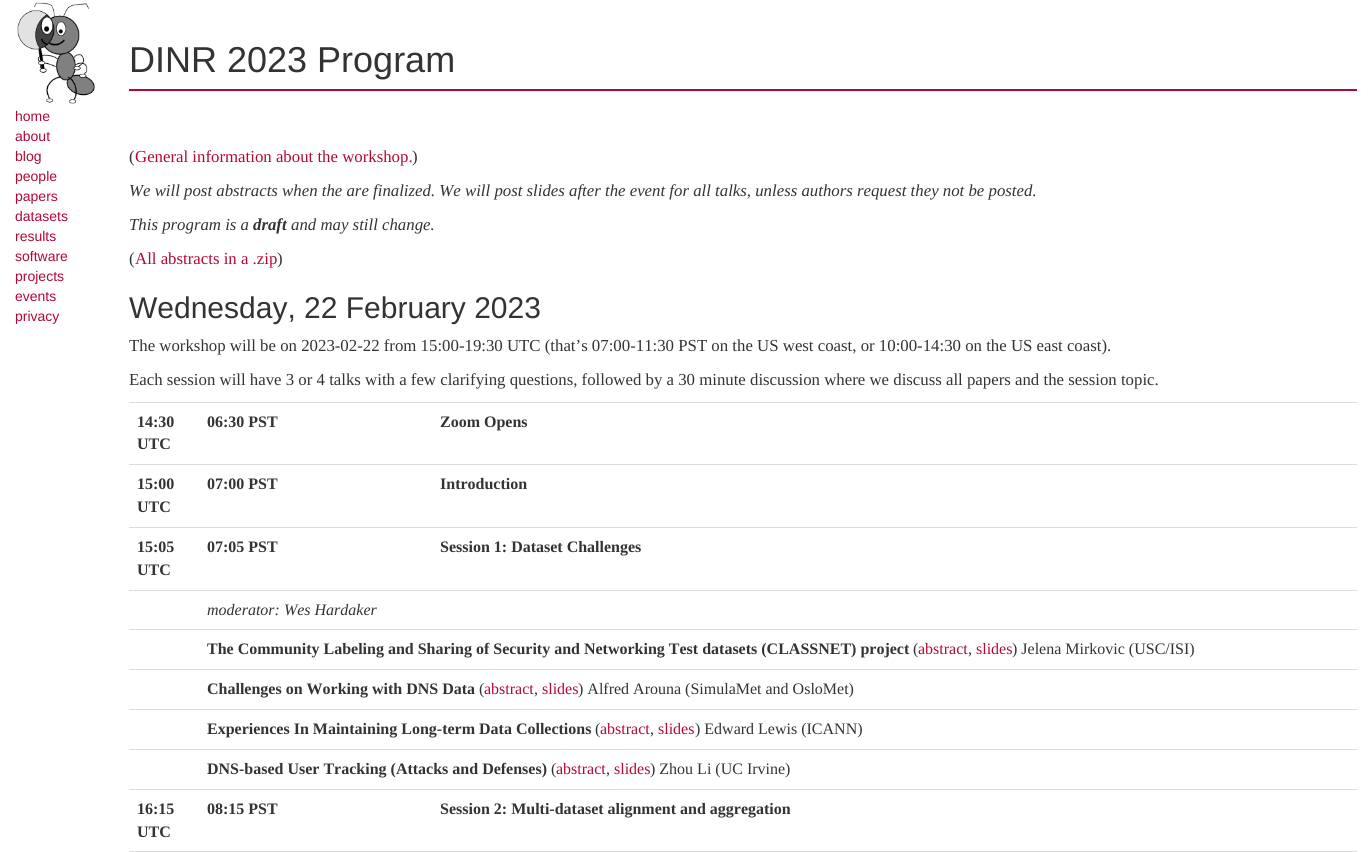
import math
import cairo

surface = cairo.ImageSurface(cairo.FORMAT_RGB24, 1372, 852)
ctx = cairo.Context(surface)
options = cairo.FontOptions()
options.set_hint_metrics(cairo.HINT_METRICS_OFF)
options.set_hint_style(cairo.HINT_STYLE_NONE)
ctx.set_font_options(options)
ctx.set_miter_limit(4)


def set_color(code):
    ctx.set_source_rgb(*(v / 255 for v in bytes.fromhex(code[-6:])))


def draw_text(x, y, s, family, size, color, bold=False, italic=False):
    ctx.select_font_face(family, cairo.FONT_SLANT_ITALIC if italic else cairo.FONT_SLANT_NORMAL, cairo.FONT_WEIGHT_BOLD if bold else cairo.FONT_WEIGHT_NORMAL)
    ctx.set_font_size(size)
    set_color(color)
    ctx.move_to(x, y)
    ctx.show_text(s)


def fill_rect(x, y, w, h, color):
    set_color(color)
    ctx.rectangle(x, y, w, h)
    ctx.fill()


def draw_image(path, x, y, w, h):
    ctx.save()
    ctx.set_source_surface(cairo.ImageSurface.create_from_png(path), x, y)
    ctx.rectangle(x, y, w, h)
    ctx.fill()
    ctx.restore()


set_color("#ffffff")
ctx.paint()
draw_image("assets/img1.png", 17, 2, 78, 102)
draw_text(15, 121, "home", "Liberation Sans", 14, "#b20837")
draw_text(15, 141, "about", "Liberation Sans", 14, "#b20837")
draw_text(15, 161, "blog", "Liberation Sans", 14, "#b20837")
draw_text(15, 181, "people", "Liberation Sans", 14, "#b20837")
draw_text(15, 201, "papers", "Liberation Sans", 14, "#b20837")
draw_text(15, 221, "datasets", "Liberation Sans", 14, "#b20837")
draw_text(15, 241, "results", "Liberation Sans", 14, "#b20837")
draw_text(15, 261, "software", "Liberation Sans", 14, "#b20837")
draw_text(15, 281, "projects", "Liberation Sans", 14, "#b20837")
draw_text(15, 301, "events", "Liberation Sans", 14, "#b20837")
draw_text(15, 321, "privacy", "Liberation Sans", 14, "#b20837")
fill_rect(129, 89, 1228, 2, "#b20837")
draw_text(129, 72, "DINR 2023 Program", "Liberation Sans", 36, "#333333")
draw_text(129, 162, "(", "Liberation Serif", 16.8, "#333333")
draw_text(135, 162, "General information about the workshop.", "Liberation Serif", 16.8, "#b20837")
draw_text(412, 162, ")", "Liberation Serif", 16.8, "#333333")
draw_text(129, 196, "We will post abstracts when the are finalized. We will post slides after the event for all talks, unless authors request they not be posted.", "Liberation Serif", 16.8, "#333333", italic=True)
draw_text(129, 230, "This program is a", "Liberation Serif", 16.8, "#333333", italic=True)
draw_text(253, 230, "draft", "Liberation Serif", 16.8, "#333333", bold=True, italic=True)
draw_text(291, 230, "and may still change.", "Liberation Serif", 16.8, "#333333", italic=True)
draw_text(129, 264, "(", "Liberation Serif", 16.8, "#333333")
draw_text(135, 264, "All abstracts in a .zip", "Liberation Serif", 16.8, "#b20837")
draw_text(277, 264, ")", "Liberation Serif", 16.8, "#333333")
draw_text(129, 318, "Wednesday, 22 February 2023", "Liberation Sans", 30, "#333333")
draw_text(129, 351, "The workshop will be on 2023-02-22 from 15:00-19:30 UTC (that’s 07:00-11:30 PST on the US west coast, or 10:00-14:30 on the US east coast).", "Liberation Serif", 16.8, "#333333")
draw_text(129, 385, "Each session will have 3 or 4 talks with a few clarifying questions, followed by a 30 minute discussion where we discuss all papers and the session topic.", "Liberation Serif", 16.8, "#333333")
draw_text(137, 427, "14:30", "Liberation Serif", 16, "#333333", bold=True)
draw_text(137, 449, "UTC", "Liberation Serif", 16, "#333333", bold=True)
draw_text(207, 427, "06:30 PST", "Liberation Serif", 16, "#333333", bold=True)
fill_rect(129, 402, 1228, 1, "#dddddd")
draw_text(440, 427, "Zoom Opens", "Liberation Serif", 16, "#333333", bold=True)
draw_text(137, 489, "15:00", "Liberation Serif", 16, "#333333", bold=True)
draw_text(137, 512, "UTC", "Liberation Serif", 16, "#333333", bold=True)
draw_text(207, 489, "07:00 PST", "Liberation Serif", 16, "#333333", bold=True)
fill_rect(129, 464, 1228, 1, "#dddddd")
draw_text(440, 489, "Introduction", "Liberation Serif", 16, "#333333", bold=True)
draw_text(137, 552, "15:05", "Liberation Serif", 16, "#333333", bold=True)
draw_text(137, 575, "UTC", "Liberation Serif", 16, "#333333", bold=True)
draw_text(207, 552, "07:05 PST", "Liberation Serif", 16, "#333333", bold=True)
fill_rect(129, 527, 1228, 1, "#dddddd")
draw_text(440, 552, "Session 1: Dataset Challenges", "Liberation Serif", 16, "#333333", bold=True)
fill_rect(129, 590, 1228, 1, "#dddddd")
draw_text(207, 615, "moderator: Wes Hardaker", "Liberation Serif", 16, "#333333", italic=True)
fill_rect(129, 629, 1228, 1, "#dddddd")
draw_text(207, 654, "The Community Labeling and Sharing of Security and Networking Test datasets (CLASSNET) project", "Liberation Serif", 16, "#333333", bold=True)
draw_text(913, 654, "(", "Liberation Serif", 16, "#333333")
draw_text(918, 654, "abstract", "Liberation Serif", 16, "#b20837")
draw_text(968, 654, ",", "Liberation Serif", 16, "#333333")
draw_text(976, 654, "slides", "Liberation Serif", 16, "#b20837")
draw_text(1012, 654, ") Jelena Mirkovic (USC/ISI)", "Liberation Serif", 16, "#333333")
fill_rect(129, 669, 1228, 1, "#dddddd")
draw_text(207, 694, "Challenges on Working with DNS Data", "Liberation Serif", 16, "#333333", bold=True)
draw_text(479, 694, "(", "Liberation Serif", 16, "#333333")
draw_text(484, 694, "abstract", "Liberation Serif", 16, "#b20837")
draw_text(534, 694, ",", "Liberation Serif", 16, "#333333")
draw_text(542, 694, "slides", "Liberation Serif", 16, "#b20837")
draw_text(578, 694, ") Alfred Arouna (SimulaMet and OsloMet)", "Liberation Serif", 16, "#333333")
fill_rect(129, 709, 1228, 1, "#dddddd")
draw_text(207, 734, "Experiences In Maintaining Long-term Data Collections", "Liberation Serif", 16, "#333333", bold=True)
draw_text(595, 734, "(", "Liberation Serif", 16, "#333333")
draw_text(600, 734, "abstract", "Liberation Serif", 16, "#b20837")
draw_text(650, 734, ",", "Liberation Serif", 16, "#333333")
draw_text(658, 734, "slides", "Liberation Serif", 16, "#b20837")
draw_text(695, 734, ") Edward Lewis (ICANN)", "Liberation Serif", 16, "#333333")
fill_rect(129, 749, 1228, 1, "#dddddd")
draw_text(207, 774, "DNS-based User Tracking (Attacks and Defenses)", "Liberation Serif", 16, "#333333", bold=True)
draw_text(551, 774, "(", "Liberation Serif", 16, "#333333")
draw_text(556, 774, "abstract", "Liberation Serif", 16, "#b20837")
draw_text(606, 774, ",", "Liberation Serif", 16, "#333333")
draw_text(614, 774, "slides", "Liberation Serif", 16, "#b20837")
draw_text(650, 774, ") Zhou Li (UC Irvine)", "Liberation Serif", 16, "#333333")
draw_text(137, 814, "16:15", "Liberation Serif", 16, "#333333", bold=True)
draw_text(137, 837, "UTC", "Liberation Serif", 16, "#333333", bold=True)
draw_text(207, 814, "08:15 PST", "Liberation Serif", 16, "#333333", bold=True)
fill_rect(129, 789, 1228, 1, "#dddddd")
draw_text(440, 814, "Session 2: Multi-dataset alignment and aggregation", "Liberation Serif", 16, "#333333", bold=True)
fill_rect(129, 851, 1228, 1, "#dddddd")
surface.write_to_png("output.png")
